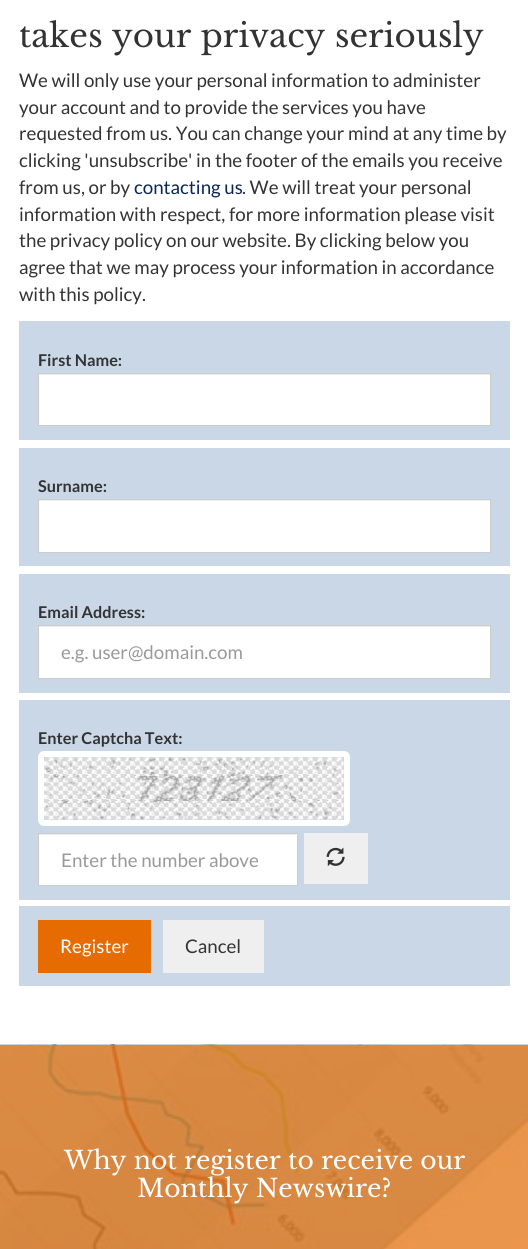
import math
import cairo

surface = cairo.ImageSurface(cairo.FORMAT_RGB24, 528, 1249)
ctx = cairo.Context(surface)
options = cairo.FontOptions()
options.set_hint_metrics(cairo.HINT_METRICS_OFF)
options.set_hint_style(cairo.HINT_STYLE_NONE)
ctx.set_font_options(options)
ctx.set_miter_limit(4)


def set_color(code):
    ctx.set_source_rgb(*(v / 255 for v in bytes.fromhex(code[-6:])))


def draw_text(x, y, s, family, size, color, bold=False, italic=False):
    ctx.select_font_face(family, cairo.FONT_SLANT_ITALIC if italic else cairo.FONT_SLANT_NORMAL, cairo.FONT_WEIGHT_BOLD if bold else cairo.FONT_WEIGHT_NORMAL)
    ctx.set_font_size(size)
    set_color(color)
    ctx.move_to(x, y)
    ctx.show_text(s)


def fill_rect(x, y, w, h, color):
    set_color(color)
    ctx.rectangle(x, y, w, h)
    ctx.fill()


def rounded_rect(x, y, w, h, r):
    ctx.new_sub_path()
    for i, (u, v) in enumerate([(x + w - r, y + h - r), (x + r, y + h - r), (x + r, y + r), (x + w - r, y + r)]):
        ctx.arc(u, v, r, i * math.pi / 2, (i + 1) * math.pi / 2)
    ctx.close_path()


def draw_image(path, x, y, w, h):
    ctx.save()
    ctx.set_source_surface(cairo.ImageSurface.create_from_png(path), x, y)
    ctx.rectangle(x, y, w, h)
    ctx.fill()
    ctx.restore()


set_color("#ffffff")
ctx.paint()
draw_text(19, 47, "takes your privacy seriously", "Libre Baskerville", 32.5, "#333333")
draw_text(19, 87, "We will only use your personal information to administer", "Lato", 18.75, "#333333")
draw_text(19, 114, "your account and to provide the services you have", "Lato", 18.75, "#333333")
draw_text(19, 140, "requested from us. You can change your mind at any time by", "Lato", 18.75, "#333333")
draw_text(19, 167, "clicking 'unsubscribe' in the footer of the emails you receive", "Lato", 18.75, "#333333")
draw_text(19, 194, "from us, or by", "Lato", 18.75, "#333333")
draw_text(134, 194, "contacting us", "Lato", 18.75, "#0a2653")
draw_text(242, 194, ". We will treat your personal", "Lato", 18.75, "#333333")
draw_text(19, 221, "information with respect, for more information please visit", "Lato", 18.75, "#333333")
draw_text(19, 247, "the privacy policy on our website. By clicking below you", "Lato", 18.75, "#333333")
draw_text(19, 274, "agree that we may process your information in accordance", "Lato", 18.75, "#333333")
draw_text(19, 301, "with this policy.", "Lato", 18.75, "#333333")
fill_rect(19, 321, 491, 119, "#cad7e7")
draw_text(38, 366, "First Name:", "Lato", 16.25, "#333333", bold=True)
fill_rect(39, 375, 451, 50, "#ffffff")
fill_rect(39, 374, 451, 1, "#ececec")
ctx.rectangle(38.5, 373.5, 452, 52)
set_color("#cccccc")
ctx.set_line_width(1)
ctx.stroke()
fill_rect(19, 448, 491, 118, "#cad7e7")
draw_text(38, 492, "Surname:", "Lato", 16.25, "#333333", bold=True)
fill_rect(39, 501, 451, 51, "#ffffff")
fill_rect(39, 500, 451, 1, "#ececec")
ctx.rectangle(38.5, 499.5, 452, 53)
set_color("#cccccc")
ctx.stroke()
fill_rect(19, 574, 491, 119, "#cad7e7")
draw_text(38, 618, "Email Address:", "Lato", 16.25, "#333333", bold=True)
fill_rect(39, 627, 451, 51, "#ffffff")
fill_rect(39, 626, 451, 1, "#ececec")
ctx.rectangle(38.5, 625.5, 452, 53)
set_color("#cccccc")
ctx.stroke()
draw_text(61, 659, "e.g. user@domain.com", "Lato", 18.75, "#999999")
fill_rect(19, 700, 491, 200, "#cad7e7")
draw_text(38, 744, "Enter Captcha Text:", "Lato", 16.25, "#333333", bold=True)
rounded_rect(41, 754, 306, 69, 3)
set_color("#ffffff")
ctx.set_line_width(6)
ctx.stroke()
draw_image("assets/img1.png", 44, 757, 300, 63)
fill_rect(39, 834, 258, 51, "#ffffff")
fill_rect(39, 834, 257, 1, "#ececec")
ctx.rectangle(38.5, 833.5, 259, 52)
set_color("#cccccc")
ctx.set_line_width(1)
ctx.stroke()
draw_text(61, 867, "Enter the number above", "Lato", 18.75, "#999999")
fill_rect(304, 833, 64, 51, "#efefef")
draw_image("assets/img2.png", 326, 847, 19, 20)
fill_rect(19, 906, 491, 80, "#cad7e7")
fill_rect(38, 920, 113, 53, "#e66b00")
draw_text(60, 953, "Register", "Lato", 18.75, "#ffffff")
fill_rect(163, 920, 101, 53, "#efefef")
draw_text(185, 953, "Cancel", "Lato", 18.75, "#333333")
draw_image("assets/img3.png", 0, 1044, 528, 205)
draw_text(64, 1169, "Why not register to receive our", "Libre Baskerville", 25, "#ffffff")
draw_text(137, 1197, "Monthly Newswire?", "Libre Baskerville", 25, "#ffffff")
surface.write_to_png("output.png")
